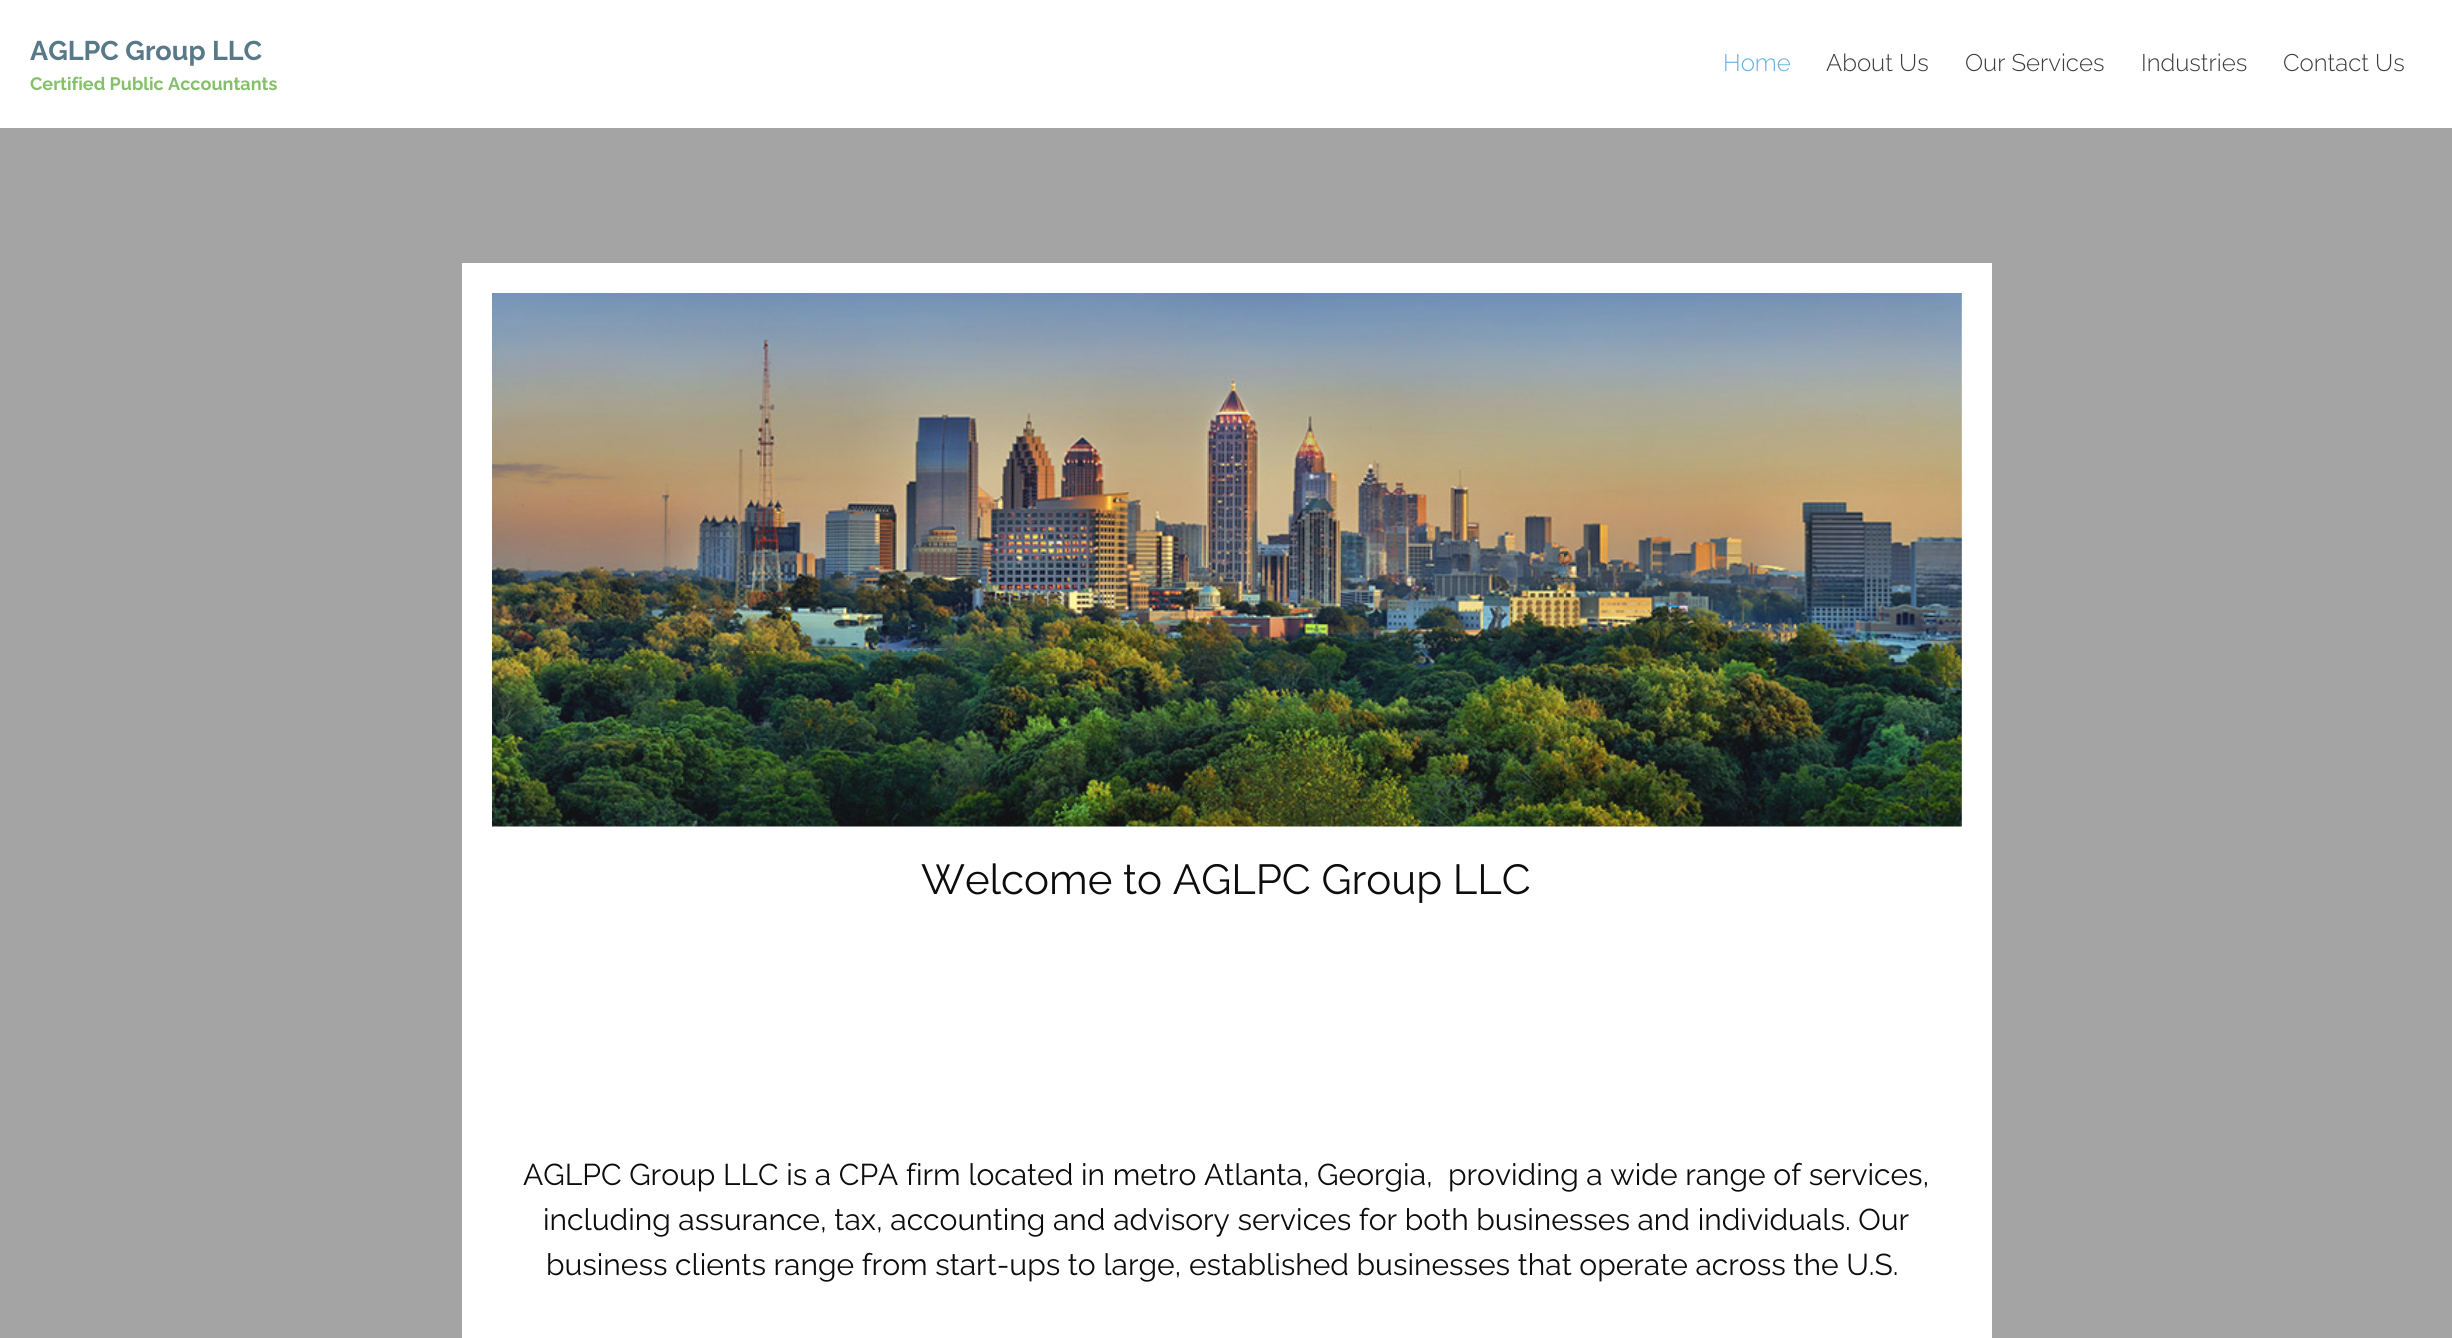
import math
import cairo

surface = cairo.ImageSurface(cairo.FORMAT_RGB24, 2452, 1338)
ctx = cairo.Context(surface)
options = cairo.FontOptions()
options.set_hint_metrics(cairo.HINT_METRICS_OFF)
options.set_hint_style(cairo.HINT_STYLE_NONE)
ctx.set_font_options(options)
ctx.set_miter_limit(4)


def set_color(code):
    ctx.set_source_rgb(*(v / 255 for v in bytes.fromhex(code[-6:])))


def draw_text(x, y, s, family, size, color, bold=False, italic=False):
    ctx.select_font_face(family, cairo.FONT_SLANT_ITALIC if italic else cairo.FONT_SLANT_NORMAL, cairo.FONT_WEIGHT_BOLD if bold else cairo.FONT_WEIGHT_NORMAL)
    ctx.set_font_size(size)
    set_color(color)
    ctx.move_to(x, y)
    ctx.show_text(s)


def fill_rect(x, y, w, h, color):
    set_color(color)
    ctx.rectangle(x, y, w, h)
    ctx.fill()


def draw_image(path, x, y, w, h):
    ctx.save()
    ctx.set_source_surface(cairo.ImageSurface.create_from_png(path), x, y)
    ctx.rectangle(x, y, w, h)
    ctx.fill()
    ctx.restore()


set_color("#ffffff")
ctx.paint()
draw_text(30, 60, "AGLPC Group LLC", "Raleway", 27, "#587988", bold=True)
draw_text(30, 90, "Certified Public Accountants", "Raleway", 18, "#83c069", bold=True)
draw_text(1723, 71, "Home", "Raleway Light", 24, "#62b1df")
draw_text(1826, 71, "About Us", "Raleway Light", 24, "#3c3c3c")
draw_text(1965, 71, "Our Services", "Raleway Light", 24, "#3c3c3c")
draw_text(2141, 71, "Industries", "Raleway Light", 24, "#3c3c3c")
draw_text(2283, 71, "Contact Us", "Raleway Light", 24, "#3c3c3c")
fill_rect(0, 128, 2452, 1210, "#a4a4a4")
fill_rect(462, 263, 1530, 1075, "#ffffff")
draw_image("assets/img1.png", 492, 293, 1470, 534)
draw_text(921, 894, "Welcome to AGLPC Group LLC", "Raleway", 42, "#0d0d0d")
draw_text(523, 1185, "AGLPC Group LLC is a CPA firm located in metro Atlanta, Georgia,  providing a wide range of services,", "Raleway", 30, "#0d0d0d")
draw_text(543, 1230, "including assurance, tax, accounting and advisory services for both businesses and individuals. Our", "Raleway", 30, "#0d0d0d")
draw_text(546, 1275, "business clients range from start-ups to large, established businesses that operate across the U.S.", "Raleway", 30, "#0d0d0d")
draw_image("assets/img2.png", 1191, 624, 38, 74)
surface.write_to_png("output.png")
